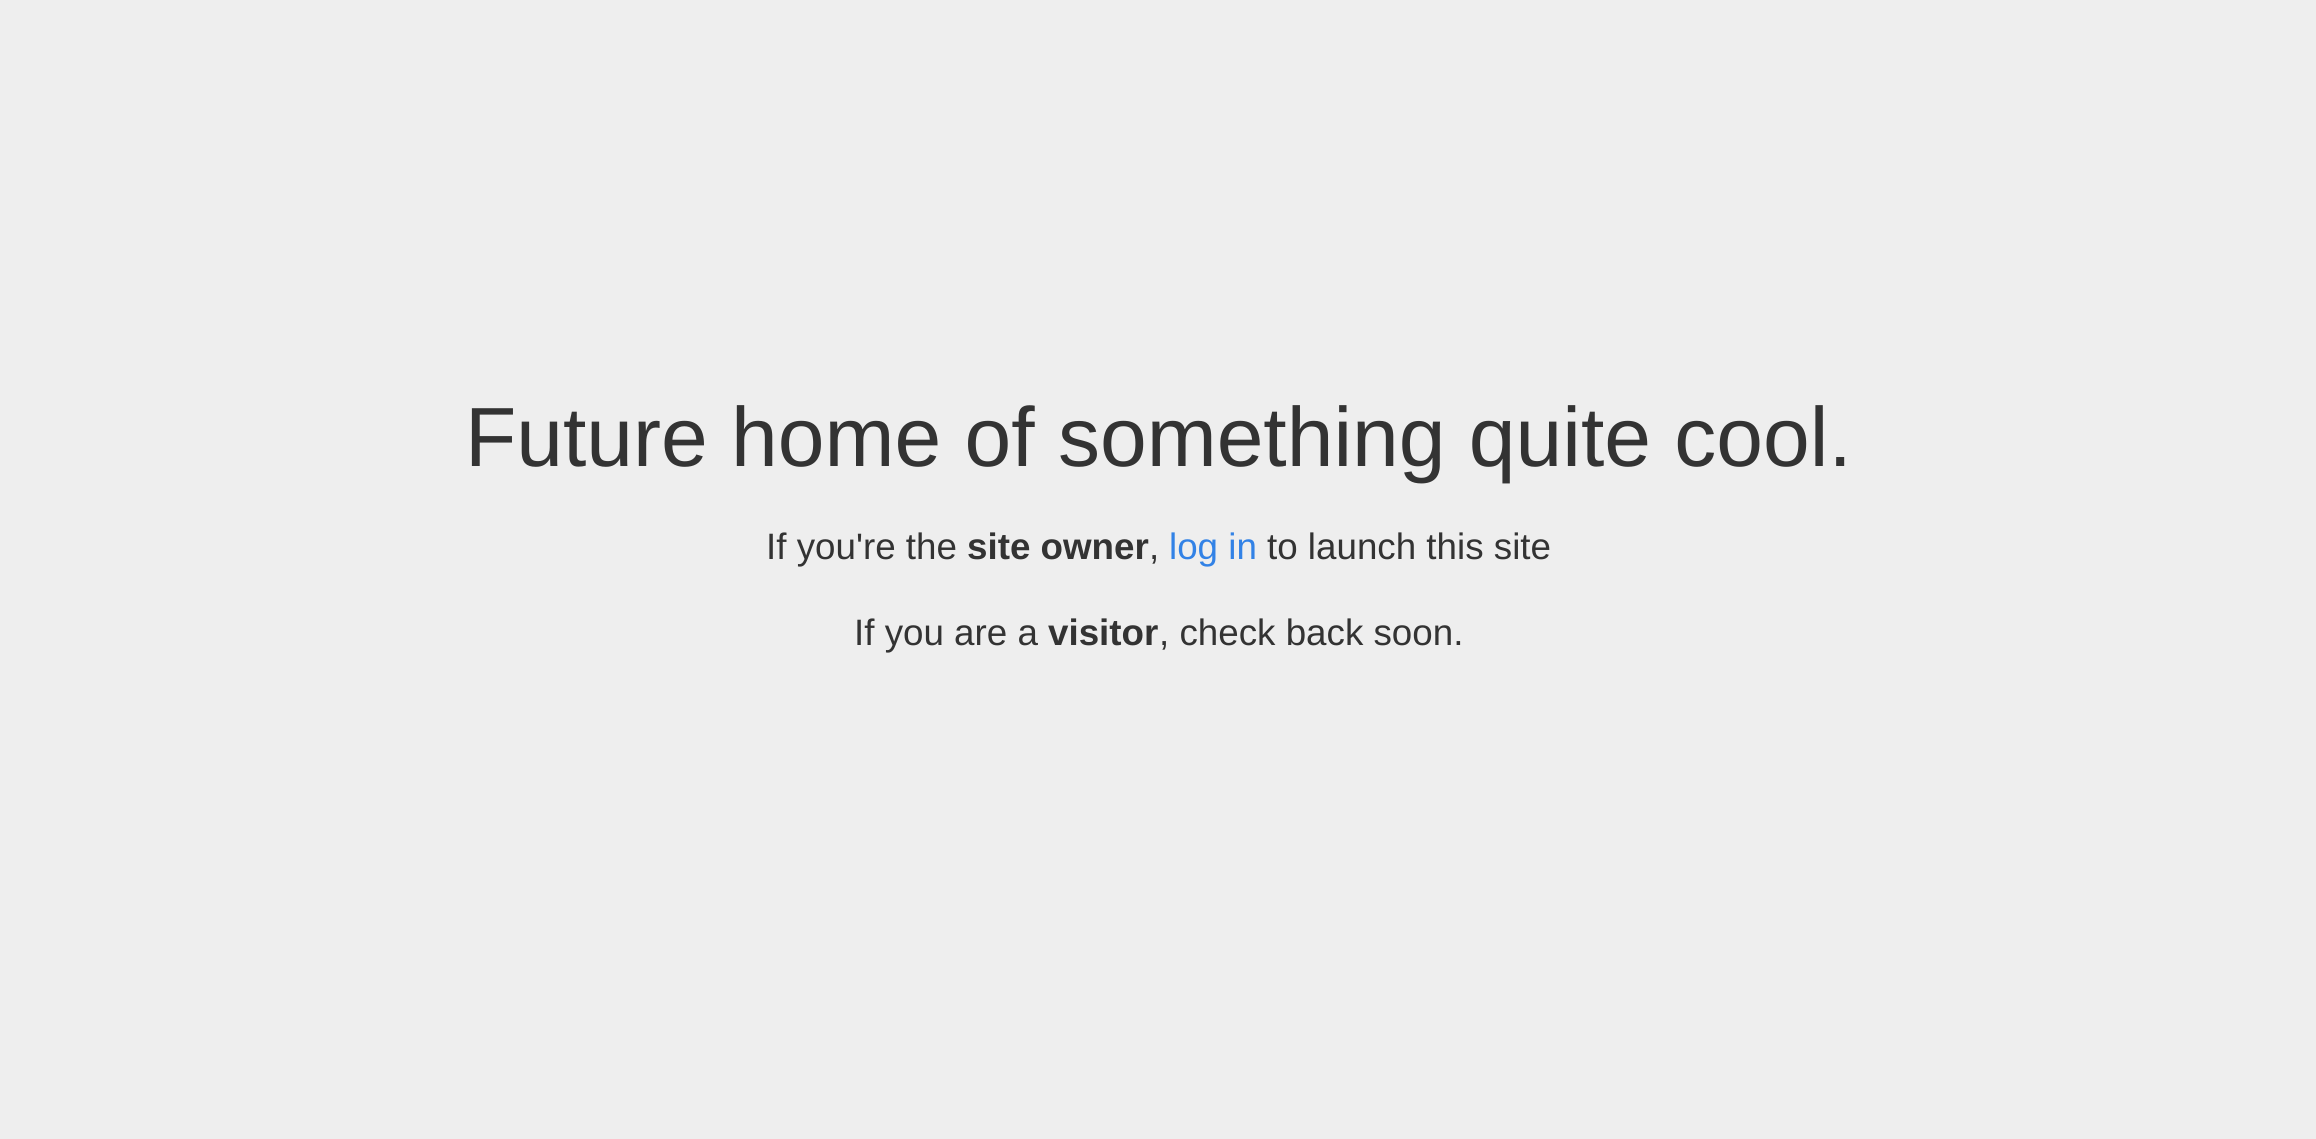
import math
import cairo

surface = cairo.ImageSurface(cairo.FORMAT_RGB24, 2316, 1139)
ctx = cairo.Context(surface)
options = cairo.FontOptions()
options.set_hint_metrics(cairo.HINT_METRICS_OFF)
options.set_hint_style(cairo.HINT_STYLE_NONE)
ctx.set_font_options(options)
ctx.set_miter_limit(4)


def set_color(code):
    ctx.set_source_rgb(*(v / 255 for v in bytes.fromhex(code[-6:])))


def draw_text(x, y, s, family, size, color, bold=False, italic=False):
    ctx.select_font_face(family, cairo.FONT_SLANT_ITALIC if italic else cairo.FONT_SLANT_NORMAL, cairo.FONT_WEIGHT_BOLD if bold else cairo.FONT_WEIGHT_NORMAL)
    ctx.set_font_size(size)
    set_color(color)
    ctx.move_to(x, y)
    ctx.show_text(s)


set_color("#eeeeee")
ctx.paint()
draw_text(465, 466, "Future home of something quite cool.", "Liberation Sans", 84, "#333333")
draw_text(766, 559, "If you're the", "Liberation Sans", 36.75, "#333333")
draw_text(967, 559, "site owner", "Liberation Sans", 36.75, "#333333", bold=True)
draw_text(1149, 559, ",", "Liberation Sans", 36.75, "#333333")
draw_text(1169, 559, "log in", "Liberation Sans", 36.75, "#3282e6")
draw_text(1267, 559, "to launch this site", "Liberation Sans", 36.75, "#333333")
draw_text(854, 645, "If you are a", "Liberation Sans", 36.75, "#333333")
draw_text(1048, 645, "visitor", "Liberation Sans", 36.75, "#333333", bold=True)
draw_text(1159, 645, ", check back soon.", "Liberation Sans", 36.75, "#333333")
surface.write_to_png("output.png")
